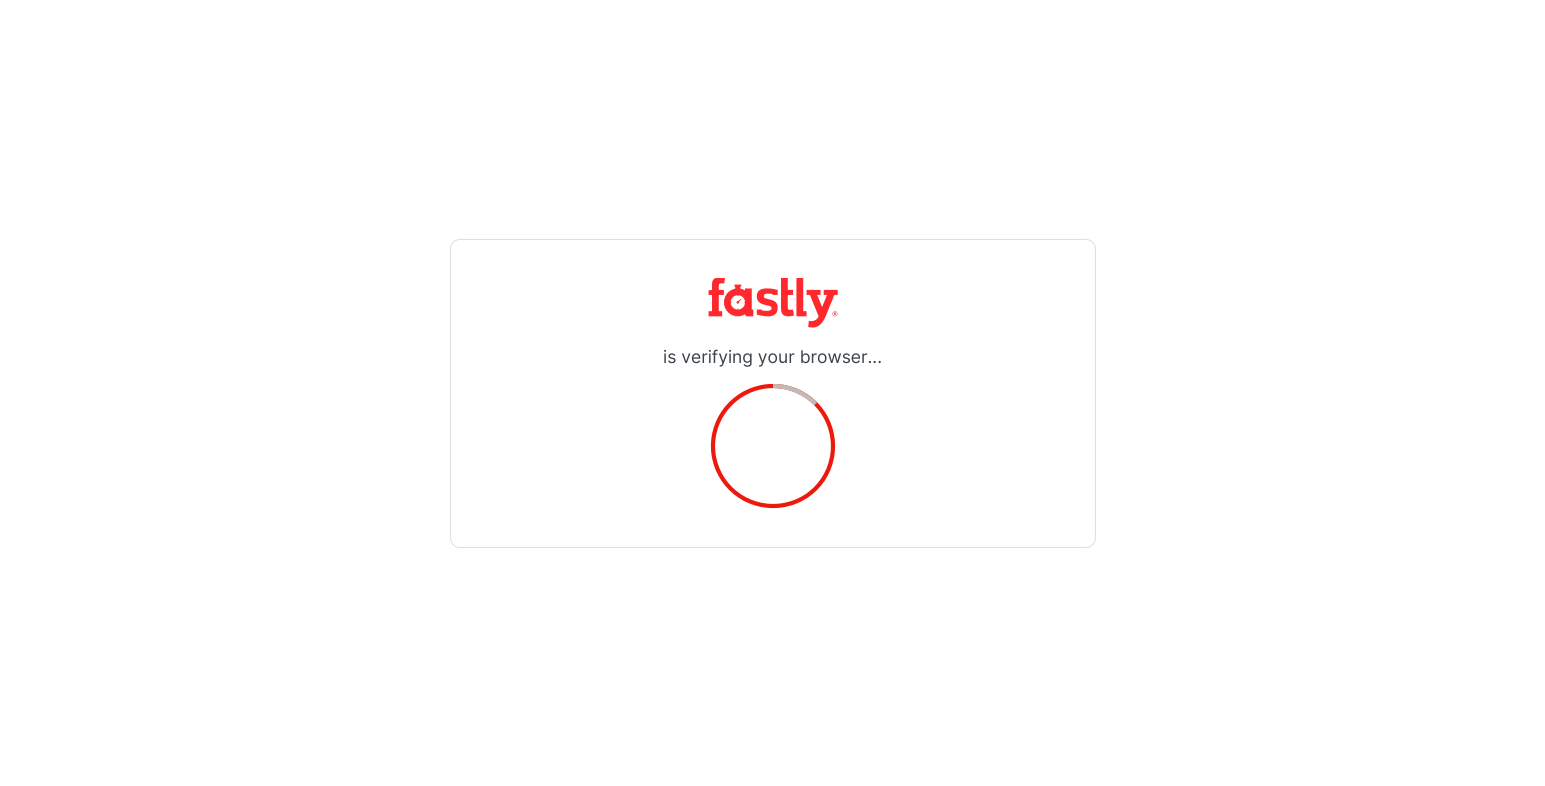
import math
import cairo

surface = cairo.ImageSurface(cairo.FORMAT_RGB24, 1545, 786)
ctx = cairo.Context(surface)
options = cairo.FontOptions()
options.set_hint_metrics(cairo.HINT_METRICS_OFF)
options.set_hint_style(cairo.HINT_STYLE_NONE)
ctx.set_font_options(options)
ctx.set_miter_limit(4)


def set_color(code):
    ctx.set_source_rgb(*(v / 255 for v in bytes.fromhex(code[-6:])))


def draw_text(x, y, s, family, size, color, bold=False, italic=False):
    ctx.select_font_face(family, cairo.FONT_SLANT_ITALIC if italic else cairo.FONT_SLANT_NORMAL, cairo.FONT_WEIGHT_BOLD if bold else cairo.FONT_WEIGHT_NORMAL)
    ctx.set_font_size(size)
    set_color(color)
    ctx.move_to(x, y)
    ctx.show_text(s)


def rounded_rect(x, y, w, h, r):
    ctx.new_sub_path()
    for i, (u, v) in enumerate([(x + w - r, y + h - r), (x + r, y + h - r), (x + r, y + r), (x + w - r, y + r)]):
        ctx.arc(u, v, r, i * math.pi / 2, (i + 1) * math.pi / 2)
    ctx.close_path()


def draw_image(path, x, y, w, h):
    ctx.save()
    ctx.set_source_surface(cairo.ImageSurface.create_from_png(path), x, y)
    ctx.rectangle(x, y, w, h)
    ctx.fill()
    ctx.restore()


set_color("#ffffff")
ctx.paint()
rounded_rect(450.5, 239.5, 645, 308, 9.5)
set_color("#dce0e4")
ctx.set_line_width(1)
ctx.stroke()
draw_image("assets/img1.png", 708, 278, 130, 50)
draw_text(663, 363, "is verifying your browser...", "Inter", 17.5, "#3a424a")
ctx.save()
ctx.rectangle(489, 384, 569, 125)
ctx.clip()
ctx.new_path()
ctx.move_to(713, 446)
ctx.curve_to(713, 413, 740, 386, 773, 386)
ctx.curve_to(806.5, 386, 833, 413, 833, 446)
ctx.curve_to(833, 479.5, 806.5, 506, 773, 506)
ctx.curve_to(740, 506, 713, 479.5, 713, 446)
ctx.close_path()
set_color("#eb1a0c")
ctx.set_line_width(4.2)
ctx.stroke()
ctx.restore()
ctx.new_path()
ctx.move_to(815.5, 404)
ctx.curve_to(804.5, 392.5, 789, 386, 773, 386)
set_color("#c2bab5")
ctx.set_line_width(4.2)
ctx.stroke()
surface.write_to_png("output.png")
